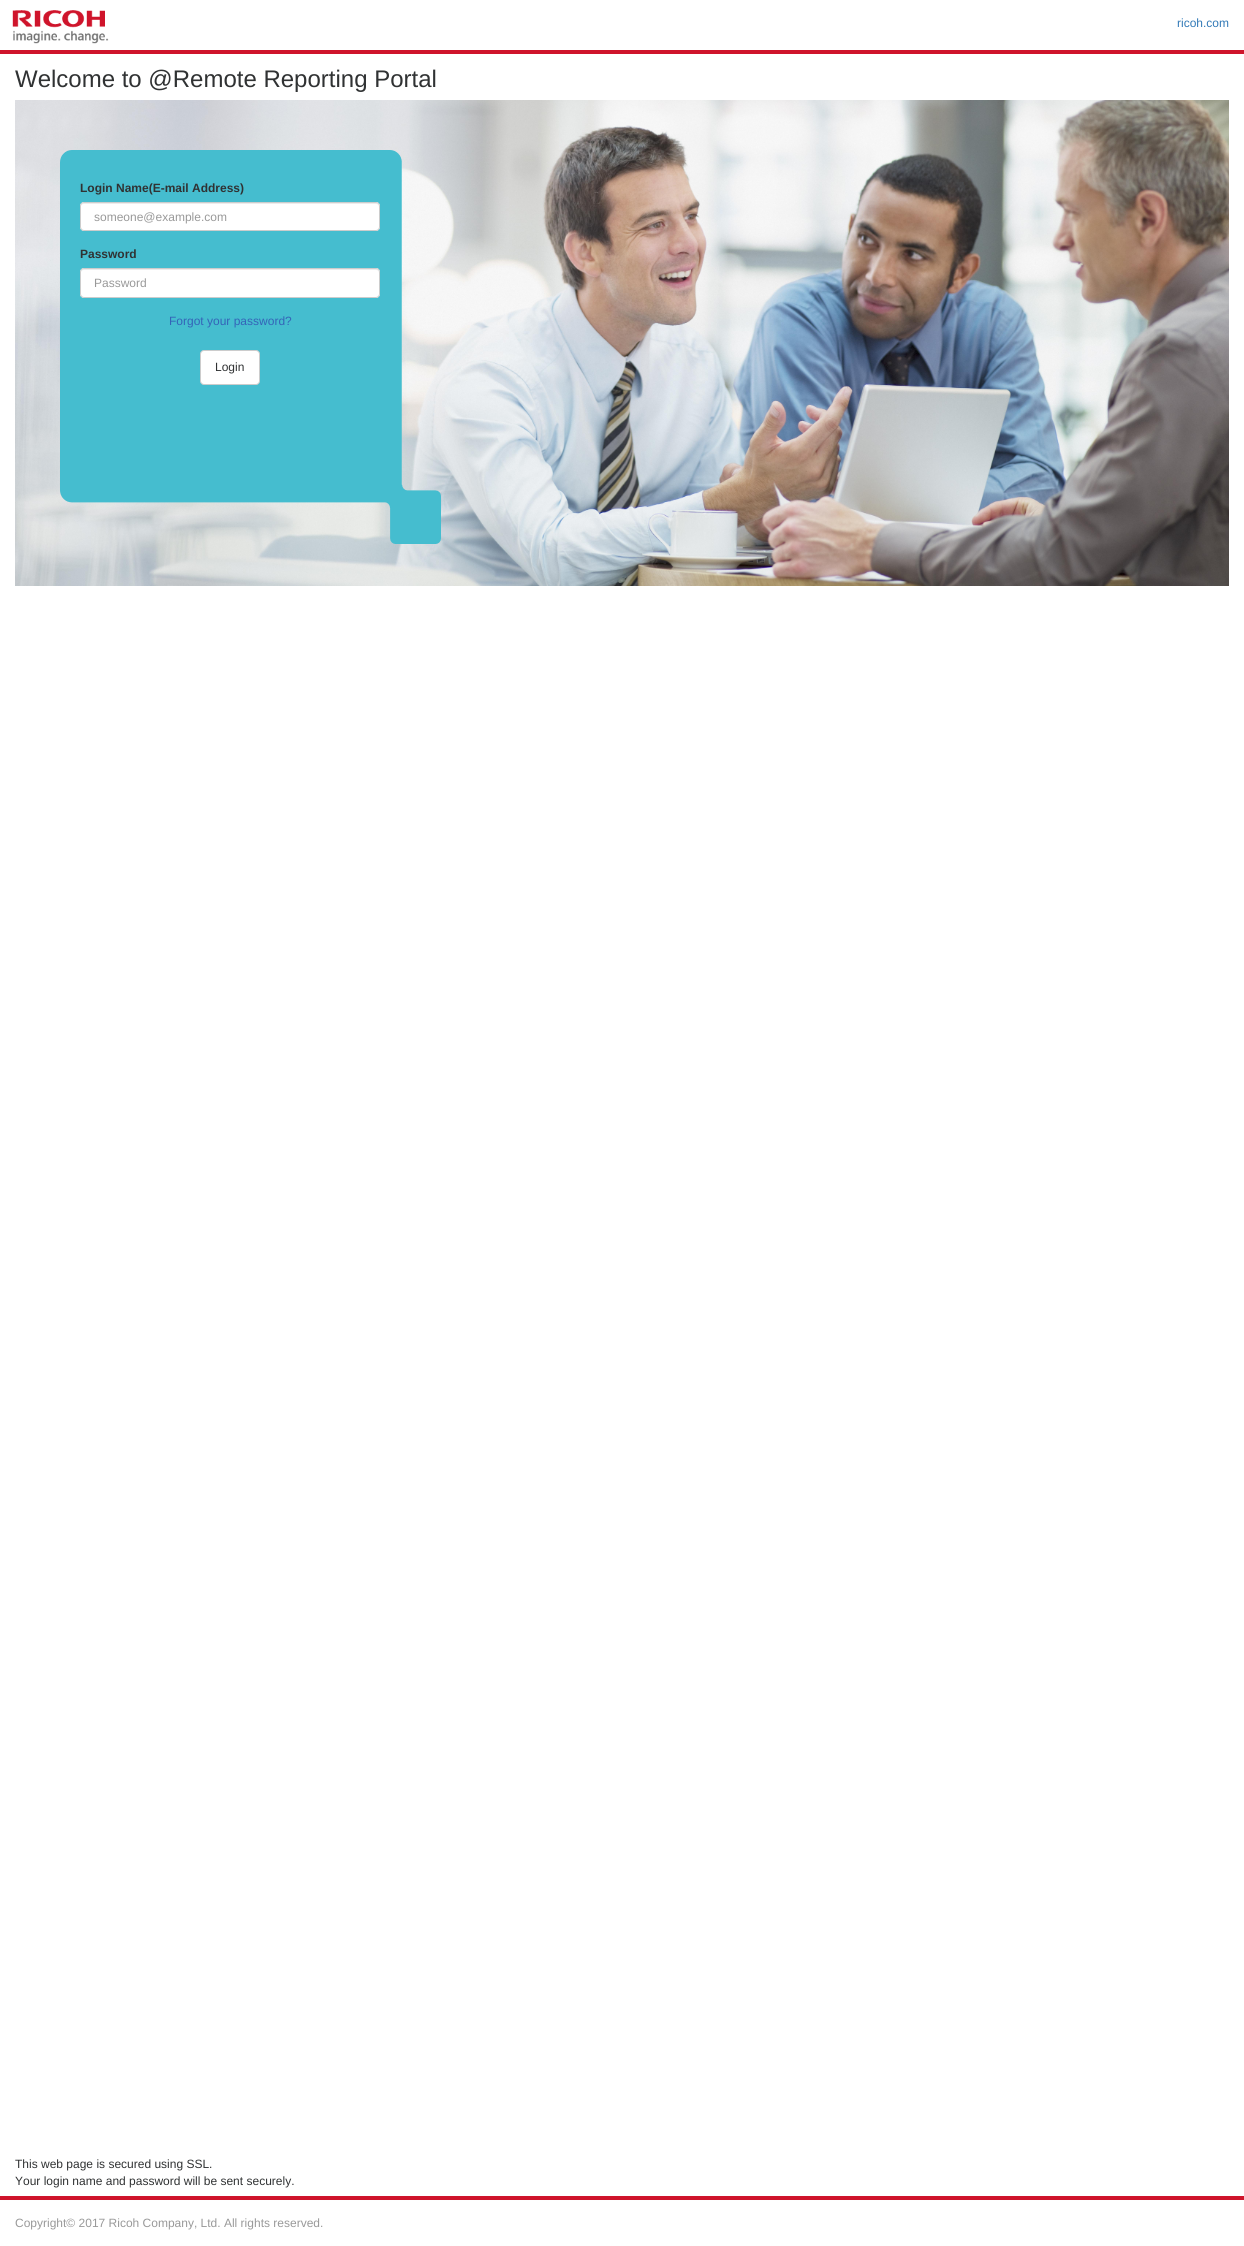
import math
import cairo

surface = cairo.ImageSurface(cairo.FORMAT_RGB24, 1244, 2246)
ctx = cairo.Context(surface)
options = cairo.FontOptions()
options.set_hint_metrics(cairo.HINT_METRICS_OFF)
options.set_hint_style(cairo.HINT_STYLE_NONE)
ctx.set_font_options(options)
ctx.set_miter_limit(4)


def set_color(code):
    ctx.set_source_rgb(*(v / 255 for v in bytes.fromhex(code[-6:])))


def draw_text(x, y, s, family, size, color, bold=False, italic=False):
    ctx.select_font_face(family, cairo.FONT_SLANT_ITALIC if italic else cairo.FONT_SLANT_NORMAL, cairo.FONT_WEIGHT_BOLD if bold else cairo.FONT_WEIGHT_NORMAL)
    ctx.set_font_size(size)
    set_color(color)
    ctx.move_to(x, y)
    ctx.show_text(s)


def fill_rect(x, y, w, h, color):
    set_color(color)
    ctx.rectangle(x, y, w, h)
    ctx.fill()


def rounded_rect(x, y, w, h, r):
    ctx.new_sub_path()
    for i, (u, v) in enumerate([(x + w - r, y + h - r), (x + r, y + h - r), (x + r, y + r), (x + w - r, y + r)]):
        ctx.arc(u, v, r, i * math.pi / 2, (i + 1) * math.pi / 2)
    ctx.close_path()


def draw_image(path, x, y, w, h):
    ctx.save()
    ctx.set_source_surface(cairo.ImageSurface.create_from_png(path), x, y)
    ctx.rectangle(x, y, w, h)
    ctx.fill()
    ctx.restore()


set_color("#ffffff")
ctx.paint()
draw_image("assets/img1.png", 12, 10, 97, 34)
draw_text(1177, 27, "ricoh.com", "Liberation Sans", 12, "#337ab7")
fill_rect(0, 50, 1244, 4, "#cf142b")
draw_text(15, 87, "Welcome to @Remote Reporting Portal", "Liberation Sans", 24, "#303233")
draw_image("assets/img2.png", 15, 100, 1214, 486)
draw_image("assets/img3.png", 60, 150, 381, 394)
draw_text(80, 192, "Login Name(E-mail Address)", "Liberation Sans", 12, "#303233", bold=True)
set_color("#ffffff")
rounded_rect(80, 202, 300, 29, 4)
ctx.fill()
set_color("#ececec")
ctx.new_path()
ctx.move_to(84, 204)
ctx.line_to(376, 204)
ctx.curve_to(378, 204, 379, 205, 379, 207)
ctx.line_to(378, 204)
ctx.line_to(377, 203)
ctx.line_to(84, 203)
ctx.curve_to(82, 203, 81, 205, 81, 207)
ctx.curve_to(81, 205, 82, 204, 84, 204)
ctx.close_path()
ctx.fill()
rounded_rect(80.5, 202.5, 299, 28, 3.5)
set_color("#cccccc")
ctx.set_line_width(1)
ctx.stroke()
draw_text(94, 221, "someone@example.com", "Liberation Sans", 12, "#999999")
draw_text(80, 258, "Password", "Liberation Sans", 12, "#303233", bold=True)
set_color("#ffffff")
rounded_rect(80, 268, 300, 30, 4)
ctx.fill()
set_color("#ececec")
ctx.new_path()
ctx.move_to(84, 270)
ctx.line_to(376, 270)
ctx.curve_to(378, 270, 379, 271, 379, 273)
ctx.line_to(378, 270)
ctx.line_to(377, 269)
ctx.line_to(84, 269)
ctx.curve_to(82, 269, 81, 271, 81, 273)
ctx.curve_to(81, 271, 82, 270, 84, 270)
ctx.close_path()
ctx.fill()
rounded_rect(80.5, 268.5, 299, 29, 3.5)
set_color("#cccccc")
ctx.stroke()
draw_text(94, 287, "Password", "Liberation Sans", 12, "#999999")
draw_text(169, 325, "Forgot your password?", "Liberation Sans", 12, "#3464b8")
set_color("#ffffff")
rounded_rect(200.5, 350.5, 59, 34, 3.5)
ctx.fill_preserve()
set_color("#cccccc")
ctx.stroke()
draw_text(215, 371, "Login", "Liberation Sans", 12, "#303233")
draw_text(15, 2168, "This web page is secured using SSL.", "Liberation Sans", 12, "#303233")
draw_text(15, 2185, "Your login name and password will be sent securely.", "Liberation Sans", 12, "#303233")
fill_rect(0, 2196, 1244, 4, "#cf142b")
draw_text(15, 2227, "Copyright© 2017 Ricoh Company, Ltd. All rights reserved.", "Liberation Sans", 12, "#999999")
surface.write_to_png("output.png")
